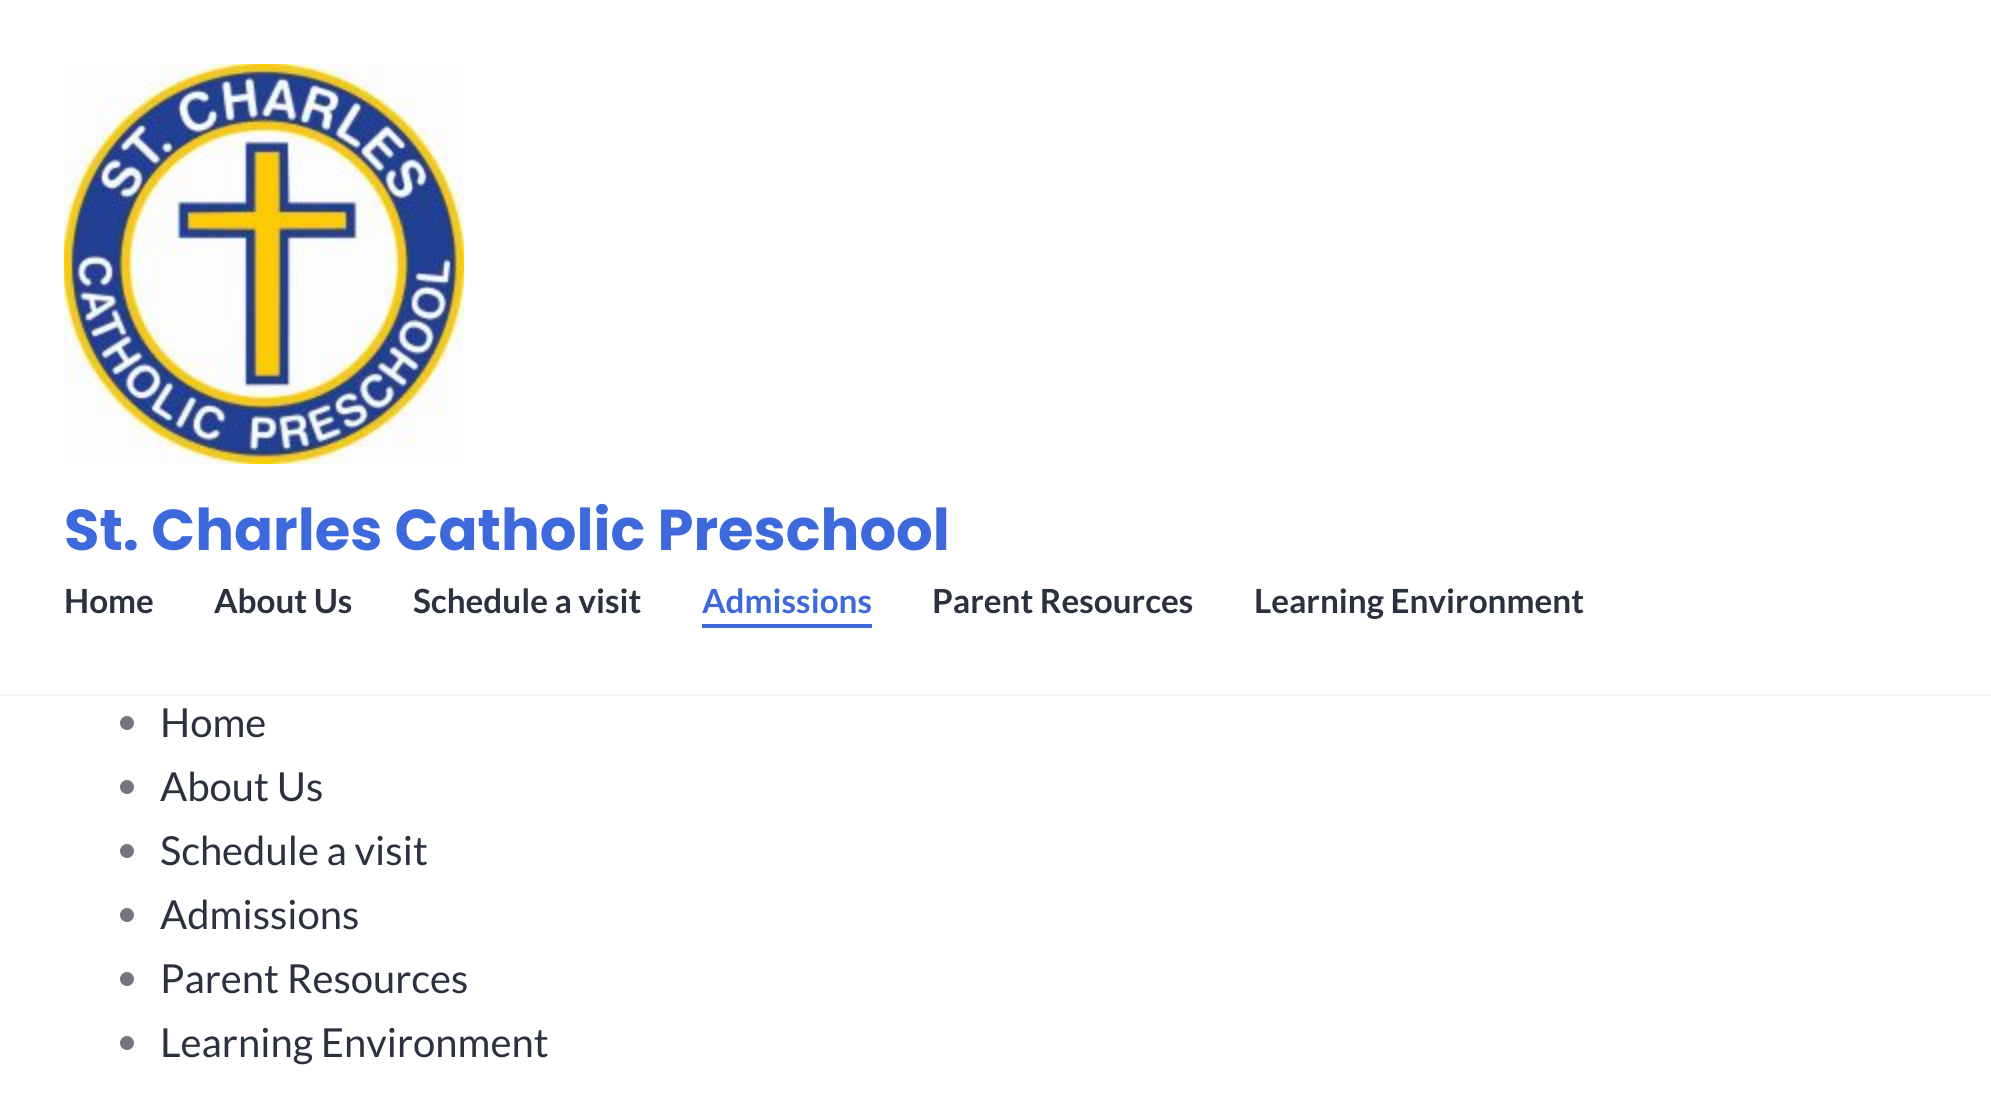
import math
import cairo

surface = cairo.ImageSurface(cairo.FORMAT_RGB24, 1991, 1099)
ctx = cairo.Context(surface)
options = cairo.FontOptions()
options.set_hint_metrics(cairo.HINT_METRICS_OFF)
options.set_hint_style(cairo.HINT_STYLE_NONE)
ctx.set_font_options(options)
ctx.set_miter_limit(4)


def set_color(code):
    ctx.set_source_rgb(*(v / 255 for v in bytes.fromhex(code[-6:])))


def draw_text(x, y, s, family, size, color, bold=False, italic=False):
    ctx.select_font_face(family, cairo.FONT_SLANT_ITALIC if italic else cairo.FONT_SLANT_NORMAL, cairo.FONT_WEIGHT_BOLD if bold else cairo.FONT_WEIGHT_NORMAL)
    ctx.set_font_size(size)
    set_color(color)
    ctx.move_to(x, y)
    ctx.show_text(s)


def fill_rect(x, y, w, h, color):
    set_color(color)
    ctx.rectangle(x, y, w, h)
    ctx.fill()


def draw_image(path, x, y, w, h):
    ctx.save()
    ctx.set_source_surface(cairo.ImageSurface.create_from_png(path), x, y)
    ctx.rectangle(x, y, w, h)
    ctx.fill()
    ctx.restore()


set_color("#ffffff")
ctx.paint()
fill_rect(0, 694, 1991, 2, "#f3f3f3")
draw_image("assets/img1.png", 64, 64, 400, 400)
draw_text(64, 550, "St. Charles Catholic Preschool", "Poppins", 57.6, "#3e69dc", bold=True)
draw_text(64, 613, "Home", "Lato", 33.25, "#2c313f", bold=True)
draw_text(214, 613, "About Us", "Lato", 33.25, "#2c313f", bold=True)
draw_text(413, 613, "Schedule a visit", "Lato", 33.25, "#2c313f", bold=True)
fill_rect(702, 624, 170, 4, "#3e69dc")
draw_text(702, 613, "Admissions", "Lato", 33.25, "#3e69dc", bold=True)
draw_text(932, 613, "Parent Resources", "Lato", 33.25, "#2c313f", bold=True)
draw_text(1254, 613, "Learning Environment", "Lato", 33.25, "#2c313f", bold=True)
set_color("#74767e")
ctx.new_path()
ctx.arc(127, 723, 7, 0, 2 * math.pi)
ctx.fill()
draw_text(160, 737, "Home", "Lato", 40, "#2c313f")
set_color("#74767e")
ctx.new_path()
ctx.arc(127, 787, 7, 0, 2 * math.pi)
ctx.fill()
draw_text(160, 801, "About Us", "Lato", 40, "#2c313f")
set_color("#74767e")
ctx.new_path()
ctx.arc(127, 851, 7, 0, 2 * math.pi)
ctx.fill()
draw_text(160, 865, "Schedule a visit", "Lato", 40, "#2c313f")
set_color("#74767e")
ctx.new_path()
ctx.arc(127, 915, 7, 0, 2 * math.pi)
ctx.fill()
draw_text(160, 929, "Admissions", "Lato", 40, "#2c313f")
set_color("#74767e")
ctx.new_path()
ctx.arc(127, 979, 7, 0, 2 * math.pi)
ctx.fill()
draw_text(160, 993, "Parent Resources", "Lato", 40, "#2c313f")
set_color("#74767e")
ctx.new_path()
ctx.arc(127, 1043, 7, 0, 2 * math.pi)
ctx.fill()
draw_text(160, 1057, "Learning Environment", "Lato", 40, "#2c313f")
surface.write_to_png("output.png")
